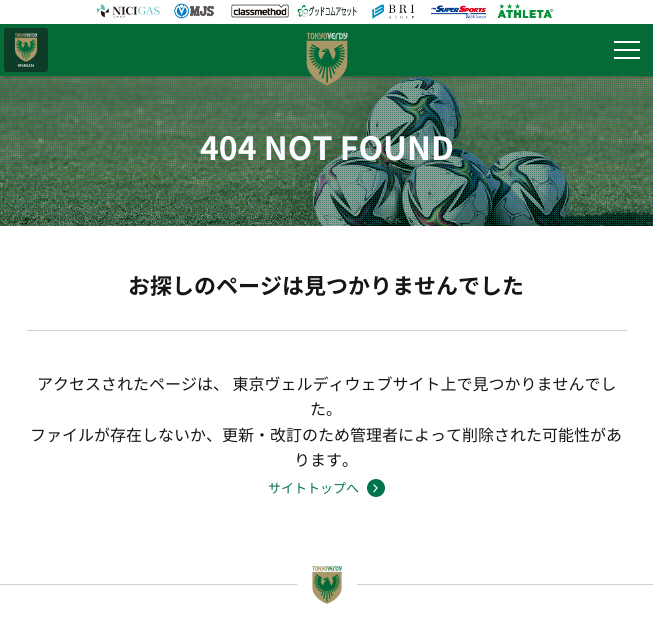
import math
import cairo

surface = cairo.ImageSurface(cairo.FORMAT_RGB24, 653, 622)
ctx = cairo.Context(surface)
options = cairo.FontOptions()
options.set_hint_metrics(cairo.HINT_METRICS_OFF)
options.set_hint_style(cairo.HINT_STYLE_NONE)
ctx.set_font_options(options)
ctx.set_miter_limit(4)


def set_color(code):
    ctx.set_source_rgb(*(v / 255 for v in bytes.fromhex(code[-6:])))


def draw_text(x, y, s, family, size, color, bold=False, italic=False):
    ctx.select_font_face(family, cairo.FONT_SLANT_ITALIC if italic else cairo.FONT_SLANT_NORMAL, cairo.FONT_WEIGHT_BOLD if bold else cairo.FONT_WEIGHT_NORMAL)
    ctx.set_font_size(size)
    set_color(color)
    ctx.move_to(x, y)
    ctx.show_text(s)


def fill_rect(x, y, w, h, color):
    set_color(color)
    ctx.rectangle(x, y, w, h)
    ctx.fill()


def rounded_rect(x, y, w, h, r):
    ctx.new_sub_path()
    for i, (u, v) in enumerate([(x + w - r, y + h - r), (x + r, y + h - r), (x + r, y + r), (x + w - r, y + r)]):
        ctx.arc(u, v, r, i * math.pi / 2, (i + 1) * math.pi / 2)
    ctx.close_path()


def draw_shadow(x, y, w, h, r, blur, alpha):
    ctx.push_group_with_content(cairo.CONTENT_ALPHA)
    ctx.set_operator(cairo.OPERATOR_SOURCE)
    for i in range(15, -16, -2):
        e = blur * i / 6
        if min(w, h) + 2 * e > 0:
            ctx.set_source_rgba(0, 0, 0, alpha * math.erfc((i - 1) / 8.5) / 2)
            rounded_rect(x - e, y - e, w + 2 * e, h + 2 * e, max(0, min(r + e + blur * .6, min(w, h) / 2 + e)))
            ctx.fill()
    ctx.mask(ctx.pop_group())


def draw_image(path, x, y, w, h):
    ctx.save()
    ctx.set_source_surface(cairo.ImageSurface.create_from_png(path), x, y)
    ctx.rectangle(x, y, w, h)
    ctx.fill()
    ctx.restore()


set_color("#ffffff")
ctx.paint()
draw_image("assets/img1.png", 96, 4, 64, 14)
draw_image("assets/img2.png", 174, 3, 40, 16)
draw_image("assets/img3.png", 231, 4, 58, 14)
draw_image("assets/img4.png", 297, 4, 60, 13)
draw_image("assets/img5.png", 371, 4, 44, 15)
draw_image("assets/img6.png", 430, 5, 57, 14)
draw_image("assets/img7.png", 497, 3, 57, 16)
draw_image("assets/img10.png", 0, 76, 653, 150)
draw_image("assets/img11.png", 0, 76, 653, 149)
set_color("#000000")
draw_shadow(0, 25, 653, 52, 0, 1, 0.25)
fill_rect(0, 24, 653, 52, "#046a38")
set_color("#0d3c28")
rounded_rect(4, 28, 44, 44, 3)
ctx.fill()
draw_image("assets/img8.png", 14, 33, 24, 34)
draw_image("assets/img9.png", 306, 32, 42, 53)
fill_rect(614, 41, 26, 2, "#ffffff")
fill_rect(614, 49, 26, 2, "#ffffff")
fill_rect(614, 57, 26, 2, "#ffffff")
draw_text(200, 160, "404 NOT FOUND", "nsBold", 32, "#ffffff", bold=True)
fill_rect(27, 330, 600, 1, "#d0d0d0")
draw_text(128, 294, "お探しのページは見つかりませんでした", "nsBold", 22, "#151515", bold=True)
draw_text(37, 390, "アクセスされたページは、 東京ヴェルディウェブサイト上で見つかりませんでし", "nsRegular", 16, "#151515")
draw_text(310, 415, "た。", "nsRegular", 16, "#151515")
draw_text(30, 441, "ファイルが存在しないか、更新・改訂のため管理者によって削除された可能性があ", "nsRegular", 16, "#151515")
draw_text(294, 466, "ります。", "nsRegular", 16, "#151515")
draw_text(268, 493, "サイトトップへ", "nsRegular", 13, "#00744b")
ctx.new_path()
ctx.arc(376, 488, 9, 0, 2 * math.pi)
ctx.fill()
ctx.new_path()
ctx.move_to(374, 491.5)
ctx.line_to(377, 488)
ctx.move_to(374, 485)
ctx.line_to(377, 488)
set_color("#ffffff")
ctx.set_line_width(1.2)
ctx.set_line_cap(cairo.LINE_CAP_SQUARE)
ctx.stroke()
fill_rect(0, 584, 653, 1, "#d0d0d0")
fill_rect(297, 584, 60, 1, "#ffffff")
draw_image("assets/img12.png", 312, 566, 30, 38)
surface.write_to_png("output.png")
